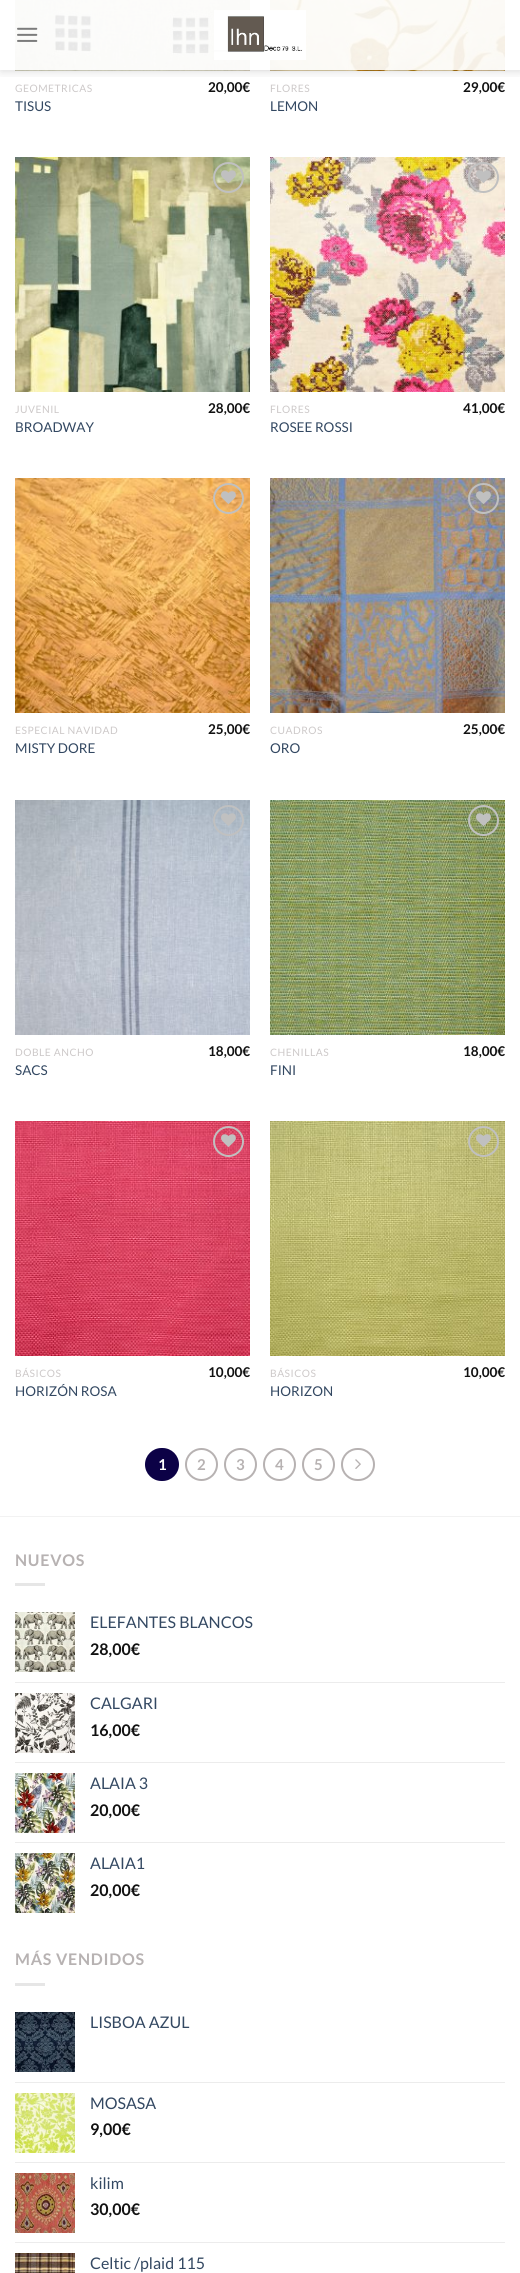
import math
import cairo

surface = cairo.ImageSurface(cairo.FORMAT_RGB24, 520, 2273)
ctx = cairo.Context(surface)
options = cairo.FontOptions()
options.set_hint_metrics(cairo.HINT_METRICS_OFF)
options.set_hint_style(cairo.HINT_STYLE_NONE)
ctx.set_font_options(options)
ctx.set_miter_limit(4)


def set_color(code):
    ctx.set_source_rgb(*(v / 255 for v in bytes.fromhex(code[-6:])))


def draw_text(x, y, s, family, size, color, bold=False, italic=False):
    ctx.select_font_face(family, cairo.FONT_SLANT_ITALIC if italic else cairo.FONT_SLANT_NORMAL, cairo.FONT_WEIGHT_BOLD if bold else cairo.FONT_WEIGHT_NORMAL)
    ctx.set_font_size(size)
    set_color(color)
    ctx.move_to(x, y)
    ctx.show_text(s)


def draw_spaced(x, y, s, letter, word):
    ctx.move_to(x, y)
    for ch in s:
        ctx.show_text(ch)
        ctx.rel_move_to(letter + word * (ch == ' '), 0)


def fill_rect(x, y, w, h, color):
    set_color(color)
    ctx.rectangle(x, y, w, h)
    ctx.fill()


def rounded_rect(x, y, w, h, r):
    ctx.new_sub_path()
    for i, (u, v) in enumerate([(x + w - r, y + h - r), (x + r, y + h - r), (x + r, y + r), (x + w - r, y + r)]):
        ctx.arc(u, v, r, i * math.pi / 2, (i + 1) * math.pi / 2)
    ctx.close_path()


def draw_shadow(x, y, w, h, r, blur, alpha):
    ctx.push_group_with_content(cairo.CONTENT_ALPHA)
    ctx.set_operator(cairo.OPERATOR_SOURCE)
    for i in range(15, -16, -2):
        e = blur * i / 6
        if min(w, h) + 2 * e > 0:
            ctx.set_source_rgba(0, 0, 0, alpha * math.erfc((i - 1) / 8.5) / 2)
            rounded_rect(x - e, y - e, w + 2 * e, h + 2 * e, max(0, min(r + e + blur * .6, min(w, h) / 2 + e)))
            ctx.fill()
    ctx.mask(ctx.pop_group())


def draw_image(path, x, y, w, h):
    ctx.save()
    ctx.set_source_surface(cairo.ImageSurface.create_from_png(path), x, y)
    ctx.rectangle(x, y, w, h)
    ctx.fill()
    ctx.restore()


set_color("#ffffff")
ctx.paint()
draw_image("assets/img3.png", 15, 0, 235, 71)
draw_image("assets/img4.png", 270, 0, 235, 71)
ctx.save()
ctx.rectangle(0, 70, 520, 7)
ctx.clip()
set_color("#000000")
draw_shadow(1, 1, 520, 70, 0, 5, 0.15)
ctx.restore()
draw_image("assets/img1.png", 17, 27, 21, 15)
draw_image("assets/img2.png", 214, 10, 92, 50)
ctx.set_source_rgba(0.718, 0.698, 0.698, 0.1)
ctx.rectangle(250, 70, 255, 1)
ctx.fill()
ctx.select_font_face("Lato")
ctx.set_font_size(10.25)
set_color("#cdc9c9")
draw_spaced(15, 92, "GEOMETRICAS", 0.5, 0)
draw_text(15, 111, "TISUS", "Lato", 13.5, "#334862")
draw_text(208, 92, "20,00€", "Lato", 13.5, "#111111", bold=True)
ctx.select_font_face("Lato")
ctx.set_font_size(10.25)
set_color("#cdc9c9")
draw_spaced(270, 92, "FLORES", 0.5, 0)
draw_text(270, 111, "LEMON", "Lato", 13.5, "#334862")
draw_text(463, 92, "29,00€", "Lato", 13.5, "#111111", bold=True)
draw_image("assets/img5.png", 15, 157, 235, 235)
ctx.arc(228.5, 177.5, 14.5, 0, 2 * math.pi)
set_color("#c0c0c0")
ctx.stroke()
draw_image("assets/img6.png", 221, 170, 15, 13)
ctx.select_font_face("Lato")
ctx.set_font_size(10.25)
set_color("#cdc9c9")
draw_spaced(15, 413, "JUVENIL", 0.5, 0)
draw_text(15, 432, "BROADWAY", "Lato", 13.5, "#334862")
draw_text(208, 413, "28,00€", "Lato", 13.5, "#111111", bold=True)
draw_image("assets/img7.png", 270, 157, 235, 235)
ctx.arc(483.5, 177.5, 14.5, 0, 2 * math.pi)
set_color("#c0c0c0")
ctx.stroke()
draw_image("assets/img8.png", 476, 170, 15, 13)
ctx.select_font_face("Lato")
ctx.set_font_size(10.25)
set_color("#cdc9c9")
draw_spaced(270, 413, "FLORES", 0.5, 0)
draw_text(270, 432, "ROSEE ROSSI", "Lato", 13.5, "#334862")
draw_text(463, 413, "41,00€", "Lato", 13.5, "#111111", bold=True)
draw_image("assets/img9.png", 15, 478, 235, 235)
ctx.arc(228.5, 498.5, 14.5, 0, 2 * math.pi)
set_color("#c0c0c0")
ctx.stroke()
draw_image("assets/img10.png", 221, 491, 15, 13)
ctx.select_font_face("Lato")
ctx.set_font_size(10.25)
set_color("#cdc9c9")
draw_spaced(15, 734, "ESPECIAL NAVIDAD", 0.5, 0)
draw_text(15, 753, "MISTY DORE", "Lato", 13.5, "#334862")
draw_text(208, 734, "25,00€", "Lato", 13.5, "#111111", bold=True)
draw_image("assets/img11.png", 270, 478, 235, 235)
ctx.arc(483.5, 498.5, 14.5, 0, 2 * math.pi)
set_color("#c0c0c0")
ctx.stroke()
draw_image("assets/img12.png", 476, 491, 15, 13)
ctx.select_font_face("Lato")
ctx.set_font_size(10.25)
set_color("#cdc9c9")
draw_spaced(270, 734, "CUADROS", 0.5, 0)
draw_text(270, 753, "ORO", "Lato", 13.5, "#334862")
draw_text(463, 734, "25,00€", "Lato", 13.5, "#111111", bold=True)
draw_image("assets/img13.png", 15, 800, 235, 235)
ctx.arc(228.5, 820.5, 14.5, 0, 2 * math.pi)
set_color("#c0c0c0")
ctx.stroke()
draw_image("assets/img14.png", 221, 813, 15, 13)
ctx.select_font_face("Lato")
ctx.set_font_size(10.25)
set_color("#cdc9c9")
draw_spaced(15, 1056, "DOBLE ANCHO", 0.5, 0)
draw_text(15, 1075, "SACS", "Lato", 13.5, "#334862")
draw_text(208, 1056, "18,00€", "Lato", 13.5, "#111111", bold=True)
draw_image("assets/img15.png", 270, 800, 235, 235)
ctx.arc(483.5, 820.5, 14.5, 0, 2 * math.pi)
set_color("#c0c0c0")
ctx.stroke()
draw_image("assets/img16.png", 476, 813, 15, 13)
ctx.select_font_face("Lato")
ctx.set_font_size(10.25)
set_color("#cdc9c9")
draw_spaced(270, 1056, "CHENILLAS", 0.5, 0)
draw_text(270, 1075, "FINI", "Lato", 13.5, "#334862")
draw_text(463, 1056, "18,00€", "Lato", 13.5, "#111111", bold=True)
draw_image("assets/img17.png", 15, 1121, 235, 235)
ctx.arc(228.5, 1141.5, 14.5, 0, 2 * math.pi)
set_color("#c0c0c0")
ctx.stroke()
draw_image("assets/img18.png", 221, 1134, 15, 13)
ctx.select_font_face("Lato")
ctx.set_font_size(10.25)
set_color("#cdc9c9")
draw_spaced(15, 1377, "BÁSICOS", 0.5, 0)
draw_text(15, 1396, "HORIZÓN ROSA", "Lato", 13.5, "#334862")
draw_text(208, 1377, "10,00€", "Lato", 13.5, "#111111", bold=True)
draw_image("assets/img19.png", 270, 1121, 235, 235)
ctx.arc(483.5, 1141.5, 14.5, 0, 2 * math.pi)
set_color("#c0c0c0")
ctx.stroke()
draw_image("assets/img20.png", 476, 1134, 15, 13)
ctx.select_font_face("Lato")
ctx.set_font_size(10.25)
set_color("#cdc9c9")
draw_spaced(270, 1377, "BÁSICOS", 0.5, 0)
draw_text(270, 1396, "HORIZON", "Lato", 13.5, "#334862")
draw_text(463, 1377, "10,00€", "Lato", 13.5, "#111111", bold=True)
set_color("#0c0146")
rounded_rect(146, 1449, 32, 31, 15.5)
ctx.fill_preserve()
ctx.stroke()
draw_text(158, 1470, "1", "Lato", 15, "#ffffff", bold=True)
ctx.new_path()
ctx.arc(201.5, 1464.5, 15.5, 0, 2 * math.pi)
set_color("#b7b2b2")
ctx.stroke()
draw_text(197, 1470, "2", "Lato", 15, "#b7b2b2", bold=True)
ctx.new_path()
ctx.arc(240.5, 1464.5, 15.5, 0, 2 * math.pi)
ctx.stroke()
draw_text(236, 1470, "3", "Lato", 15, "#b7b2b2", bold=True)
ctx.new_path()
ctx.arc(279.5, 1464.5, 15.5, 0, 2 * math.pi)
ctx.stroke()
draw_text(275, 1470, "4", "Lato", 15, "#b7b2b2", bold=True)
ctx.new_path()
ctx.arc(318.5, 1464.5, 15.5, 0, 2 * math.pi)
ctx.stroke()
draw_text(314, 1470, "5", "Lato", 15, "#b7b2b2", bold=True)
rounded_rect(342, 1449, 32, 31, 15.5)
ctx.stroke()
draw_image("assets/img21.png", 355, 1459, 6, 10)
fill_rect(0, 1516, 520, 1, "#f2f2f2")
ctx.set_font_size(16)
set_color("#b7b2b2")
draw_spaced(15, 1566, "NUEVOS", 0.75, 0)
fill_rect(15, 1583, 30, 3, "#e6e6e6")
draw_image("assets/img22.png", 15, 1612, 60, 60)
draw_text(90, 1628, "ELEFANTES BLANCOS", "Lato", 16, "#334862")
draw_text(90, 1655, "28,00€", "Lato", 16, "#111111", bold=True)
fill_rect(15, 1682, 490, 1, "#ececec")
draw_image("assets/img23.png", 15, 1693, 60, 60)
draw_text(90, 1709, "CALGARI", "Lato", 16, "#334862")
draw_text(90, 1736, "16,00€", "Lato", 16, "#111111", bold=True)
fill_rect(15, 1762, 490, 1, "#ececec")
draw_image("assets/img24.png", 15, 1773, 60, 60)
draw_text(90, 1789, "ALAIA 3", "Lato", 16, "#334862")
draw_text(90, 1816, "20,00€", "Lato", 16, "#111111", bold=True)
fill_rect(15, 1842, 490, 1, "#ececec")
draw_image("assets/img25.png", 15, 1853, 60, 60)
draw_text(90, 1869, "ALAIA1", "Lato", 16, "#334862")
draw_text(90, 1896, "20,00€", "Lato", 16, "#111111", bold=True)
set_color("#b7b2b2")
draw_spaced(15, 1965, "MÁS VENDIDOS", 0.75, 0)
fill_rect(15, 1983, 30, 3, "#e6e6e6")
draw_image("assets/img26.png", 15, 2012, 60, 60)
draw_text(90, 2028, "LISBOA AZUL", "Lato", 16, "#334862")
fill_rect(15, 2082, 490, 1, "#ececec")
draw_image("assets/img27.png", 15, 2093, 60, 60)
draw_text(90, 2109, "MOSASA", "Lato", 16, "#334862")
draw_text(90, 2135, "9,00€", "Lato", 16, "#111111", bold=True)
fill_rect(15, 2162, 490, 1, "#ececec")
draw_image("assets/img28.png", 15, 2173, 60, 60)
draw_text(90, 2189, "kilim", "Lato", 16, "#334862")
draw_text(90, 2215, "30,00€", "Lato", 16, "#111111", bold=True)
fill_rect(15, 2242, 490, 1, "#ececec")
draw_image("assets/img29.png", 15, 2253, 60, 20)
draw_text(90, 2269, "Celtic /plaid 115", "Lato", 16, "#334862")
surface.write_to_png("output.png")
